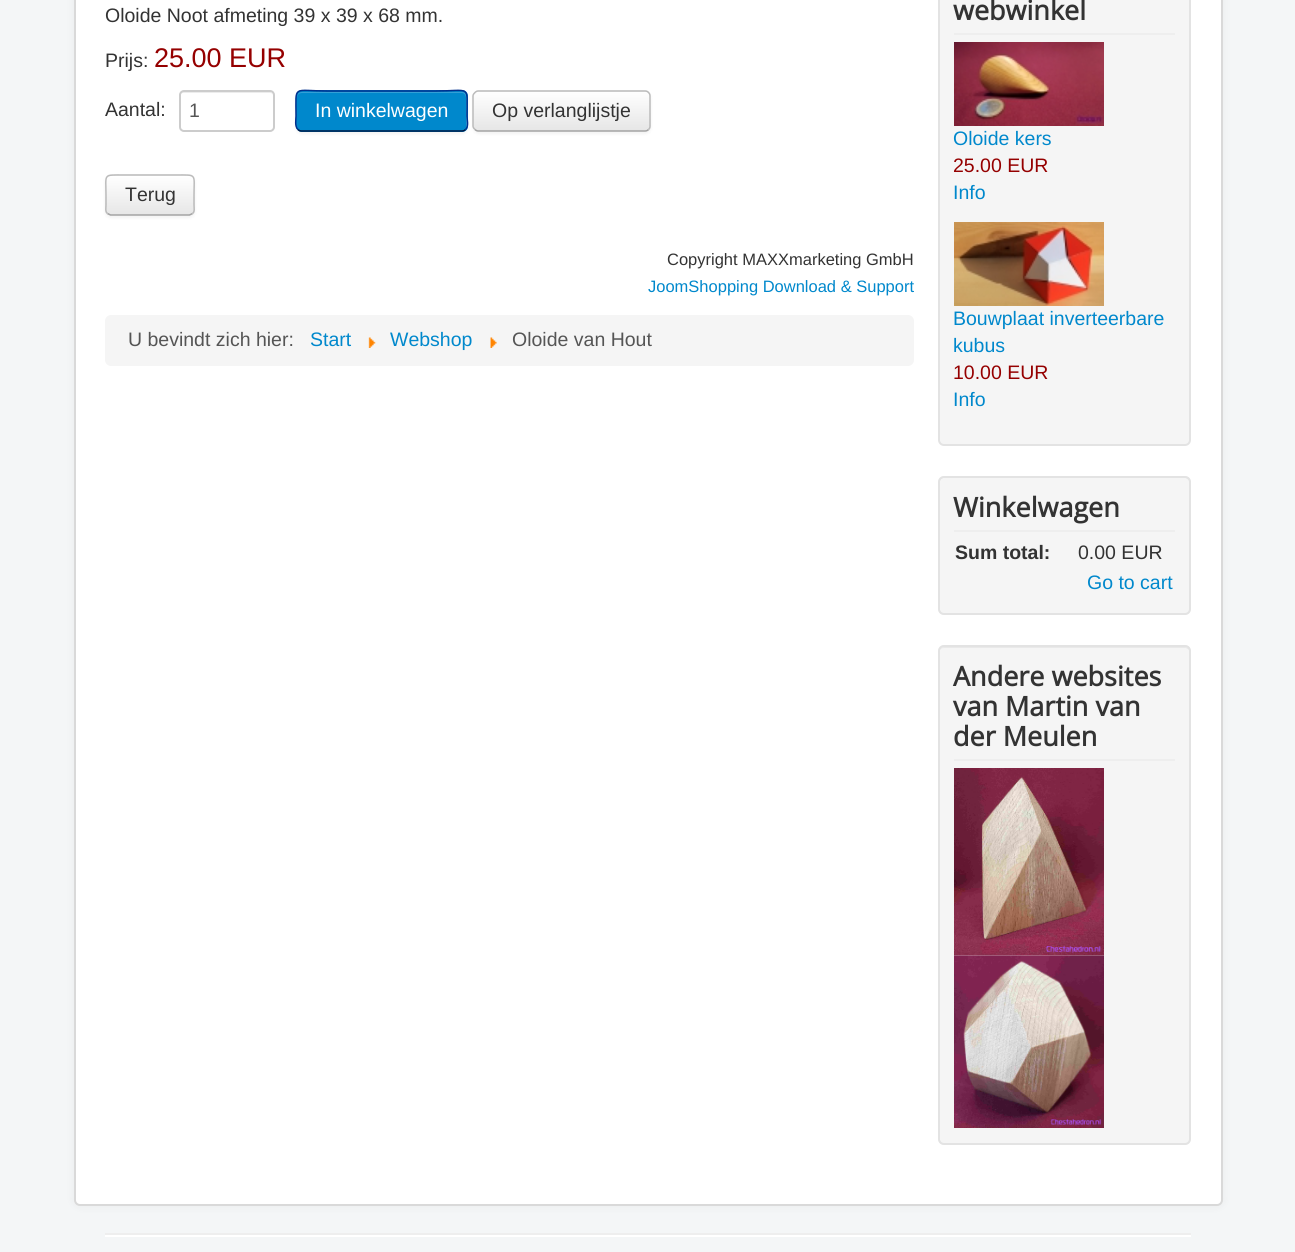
import math
import cairo

surface = cairo.ImageSurface(cairo.FORMAT_RGB24, 1295, 1252)
ctx = cairo.Context(surface)
options = cairo.FontOptions()
options.set_hint_metrics(cairo.HINT_METRICS_OFF)
options.set_hint_style(cairo.HINT_STYLE_NONE)
ctx.set_font_options(options)
ctx.set_miter_limit(4)


def set_color(code):
    ctx.set_source_rgb(*(v / 255 for v in bytes.fromhex(code[-6:])))


def draw_text(x, y, s, family, size, color, bold=False, italic=False):
    ctx.select_font_face(family, cairo.FONT_SLANT_ITALIC if italic else cairo.FONT_SLANT_NORMAL, cairo.FONT_WEIGHT_BOLD if bold else cairo.FONT_WEIGHT_NORMAL)
    ctx.set_font_size(size)
    set_color(color)
    ctx.move_to(x, y)
    ctx.show_text(s)


def fill_rect(x, y, w, h, color):
    set_color(color)
    ctx.rectangle(x, y, w, h)
    ctx.fill()


def rounded_rect(x, y, w, h, r):
    ctx.new_sub_path()
    for i, (u, v) in enumerate([(x + w - r, y + h - r), (x + r, y + h - r), (x + r, y + r), (x + w - r, y + r)]):
        ctx.arc(u, v, r, i * math.pi / 2, (i + 1) * math.pi / 2)
    ctx.close_path()


def draw_shadow(x, y, w, h, r, blur, alpha):
    ctx.push_group_with_content(cairo.CONTENT_ALPHA)
    ctx.set_operator(cairo.OPERATOR_SOURCE)
    for i in range(15, -16, -2):
        e = blur * i / 6
        if min(w, h) + 2 * e > 0:
            ctx.set_source_rgba(0, 0, 0, alpha * math.erfc((i - 1) / 8.5) / 2)
            rounded_rect(x - e, y - e, w + 2 * e, h + 2 * e, max(0, min(r + e + blur * .6, min(w, h) / 2 + e)))
            ctx.fill()
    ctx.mask(ctx.pop_group())


def draw_image(path, x, y, w, h):
    ctx.save()
    ctx.set_source_surface(cairo.ImageSurface.create_from_png(path), x, y)
    ctx.rectangle(x, y, w, h)
    ctx.fill()
    ctx.restore()


set_color("#f4f6f7")
ctx.paint()
set_color("#000000")
draw_shadow(74, -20, 1149, 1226, 6, 4.5, 0.05)
set_color("#ffffff")
rounded_rect(74, -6, 1149, 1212, 6)
ctx.fill()
rounded_rect(75, -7, 1147, 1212, 5)
ctx.set_source_rgba(0, 0, 0, 0.15)
ctx.stroke()
draw_text(105, 22, "Oloide Noot afmeting 39 x 39 x 68 mm.", "Liberation Sans", 19.5, "#333333")
draw_text(105, 67, "Prijs:", "Liberation Sans", 19.5, "#333333")
draw_text(154, 67, "25.00 EUR", "Liberation Sans", 27, "#950000")
draw_text(105, 116, "Aantal:", "Liberation Sans", 19.5, "#333333")
set_color("#ececec")
ctx.new_path()
ctx.move_to(183, 93)
ctx.line_to(270, 93)
ctx.curve_to(272, 93, 273, 94, 273, 96)
ctx.curve_to(273, 88, 259, 92, 256, 92)
ctx.line_to(198, 92)
ctx.curve_to(194, 92, 180, 88, 180, 96)
ctx.curve_to(180, 94, 181, 93, 183, 93)
ctx.close_path()
ctx.fill()
rounded_rect(180, 91, 94, 40, 4)
set_color("#cccccc")
ctx.stroke()
draw_text(189, 117, "1", "Liberation Sans", 19.5, "#555555")
set_color("#000000")
draw_shadow(296, 92, 172, 42, 6, 1.5, 0.05)
set_color("#0088cc")
rounded_rect(296, 90, 172, 42, 6)
ctx.fill()
set_color("#33a0d6")
ctx.new_path()
ctx.move_to(302, 93)
ctx.line_to(462, 93)
ctx.curve_to(468, 93, 466, 105, 466, 108)
ctx.line_to(466, 129)
ctx.curve_to(467, 128, 467, 127, 467, 126)
ctx.line_to(467, 97)
ctx.curve_to(467, 94, 465, 92, 462, 92)
ctx.line_to(302, 92)
ctx.curve_to(299, 92, 297, 94, 297, 97)
ctx.line_to(297, 98)
ctx.curve_to(297, 95, 299, 93, 302, 93)
ctx.close_path()
ctx.fill()
ctx.new_path()
ctx.move_to(465.5, 129.5)
ctx.curve_to(464.5, 130.5, 463.5, 131, 462, 131)
ctx.line_to(301.5, 131)
ctx.curve_to(300, 131, 299, 130.5, 298, 129.5)
set_color("#001641")
ctx.set_line_width(1.5)
ctx.stroke()
ctx.new_path()
ctx.move_to(298, 129.5)
ctx.curve_to(294.5, 126.5, 296, 119.5, 296, 116)
ctx.curve_to(296, 84, 292, 91, 328, 91)
ctx.line_to(435, 91)
ctx.curve_to(471.5, 91, 467, 84, 467, 116)
ctx.curve_to(467, 119.5, 469, 126.5, 465.5, 129.5)
set_color("#002f8d")
ctx.stroke()
draw_text(315, 117, "In winkelwagen", "Liberation Sans", 19.5, "#ffffff")
set_color("#000000")
draw_shadow(473, 92, 178, 42, 6, 1.5, 0.05)
set_color("#f5f5f5")
rounded_rect(473, 90, 178, 42, 6)
ctx.fill()
ctx.save()
rounded_rect(473, 90, 178, 42, 6)
ctx.clip()
gradient = cairo.LinearGradient(562, 91, 562, 131)
gradient.add_color_stop_rgba(0, 1, 1, 1, 1)
gradient.add_color_stop_rgba(1, 0.902, 0.902, 0.902, 1)
ctx.set_source(gradient)
ctx.rectangle(473, 92, 178, 39)
ctx.fill()
ctx.restore()
ctx.new_path()
ctx.move_to(648.5, 129.5)
ctx.curve_to(647.5, 130.5, 646.5, 131, 645, 131)
ctx.line_to(478.5, 131)
ctx.curve_to(477, 131, 476, 130.5, 475, 129.5)
set_color("#a2a2a2")
ctx.stroke()
ctx.new_path()
ctx.move_to(475, 129.5)
ctx.curve_to(474, 128.5, 473, 127.5, 473, 126)
ctx.line_to(473, 96)
ctx.curve_to(473, 94.5, 474, 93.5, 475, 92.5)
ctx.curve_to(476, 91.5, 477, 91, 478.5, 91)
ctx.line_to(645, 91)
ctx.curve_to(646.5, 91, 647.5, 91.5, 648.5, 92.5)
ctx.curve_to(649.5, 93.5, 650, 94.5, 650, 96)
ctx.line_to(650, 126)
ctx.curve_to(650, 127.5, 649.5, 128.5, 648.5, 129.5)
set_color("#bbbbbb")
ctx.stroke()
draw_text(492, 117, "Op verlanglijstje", "Liberation Sans", 19.5, "#333333")
set_color("#000000")
draw_shadow(105, 176, 90, 42, 6, 1.5, 0.05)
set_color("#f5f5f5")
rounded_rect(105, 174, 90, 42, 6)
ctx.fill()
ctx.save()
rounded_rect(105, 174, 90, 42, 6)
ctx.clip()
gradient = cairo.LinearGradient(150, 176, 150, 215)
gradient.add_color_stop_rgba(0, 1, 1, 1, 1)
gradient.add_color_stop_rgba(1, 0.902, 0.902, 0.902, 1)
ctx.set_source(gradient)
ctx.rectangle(105, 176, 90, 39)
ctx.fill()
ctx.restore()
ctx.new_path()
ctx.move_to(192.5, 213.5)
ctx.line_to(189.5, 215)
ctx.line_to(110.5, 215)
ctx.line_to(107.5, 213.5)
set_color("#a2a2a2")
ctx.stroke()
ctx.new_path()
ctx.move_to(107.5, 213.5)
ctx.curve_to(105, 211.5, 106, 208, 106, 205)
ctx.line_to(106, 195)
ctx.curve_to(106, 173.5, 102.5, 175, 124, 175)
ctx.line_to(176, 175)
ctx.curve_to(197.5, 175, 194, 173.5, 194, 195)
ctx.line_to(194, 205)
ctx.curve_to(194, 208, 195, 211.5, 192.5, 213.5)
set_color("#bbbbbb")
ctx.stroke()
draw_text(125, 201, "Terug", "Liberation Sans", 19.5, "#333333")
draw_text(667, 265, "Copyright MAXXmarketing GmbH", "Liberation Sans", 16.5, "#333333")
draw_text(648, 292, "JoomShopping Download & Support", "Liberation Sans", 16.5, "#0088cc")
set_color("#f5f5f5")
rounded_rect(105, 315, 809, 51, 6)
ctx.fill()
draw_text(128, 346, "U bevindt zich hier:", "Liberation Sans", 19.5, "#555555")
draw_text(310, 346, "Start", "Liberation Sans", 19.5, "#0088cc")
draw_image("assets/img1.png", 368, 337, 8, 11)
draw_text(390, 346, "Webshop", "Liberation Sans", 19.5, "#0088cc")
draw_image("assets/img2.png", 490, 337, 7, 11)
draw_text(512, 346, "Oloide van Hout", "Liberation Sans", 19.5, "#555555")
set_color("#f5f5f5")
rounded_rect(939, -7, 251, 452, 5)
ctx.fill_preserve()
set_color("#e3e3e3")
ctx.set_line_width(2)
ctx.stroke()
fill_rect(954, 33, 221, 2, "#eeeeee")
draw_text(953, 20, "webwinkel", "Open Sans", 27, "#333333", bold=True)
draw_image("assets/img3.png", 954, 42, 150, 84)
draw_text(953, 145, "Oloide kers", "Liberation Sans", 19.5, "#0088cc")
draw_text(953, 172, "25.00 EUR", "Liberation Sans", 19.5, "#950000")
draw_text(953, 199, "Info", "Liberation Sans", 19.5, "#0088cc")
draw_image("assets/img4.png", 954, 222, 150, 84)
draw_text(953, 325, "Bouwplaat inverteerbare", "Liberation Sans", 19.5, "#0088cc")
draw_text(953, 352, "kubus", "Liberation Sans", 19.5, "#0088cc")
draw_text(953, 379, "10.00 EUR", "Liberation Sans", 19.5, "#950000")
draw_text(953, 406, "Info", "Liberation Sans", 19.5, "#0088cc")
set_color("#f5f5f5")
rounded_rect(938, 476, 253, 139, 6)
ctx.fill()
set_color("#e9e9e9")
ctx.new_path()
ctx.move_to(944, 478)
ctx.line_to(1185, 478)
ctx.curve_to(1187, 478, 1190, 481, 1190, 483)
ctx.line_to(1190, 482)
ctx.curve_to(1190, 479, 1188, 477, 1185, 477)
ctx.line_to(944, 477)
ctx.curve_to(941, 477, 939, 479, 939, 482)
ctx.line_to(939, 483)
ctx.curve_to(939, 481, 941, 478, 944, 478)
ctx.close_path()
ctx.fill()
rounded_rect(939, 477, 251, 137, 5)
set_color("#e3e3e3")
ctx.stroke()
fill_rect(954, 530, 221, 2, "#eeeeee")
draw_text(953, 517, "Winkelwagen", "Open Sans", 27, "#333333", bold=True)
draw_text(955, 559, "Sum total:", "Liberation Sans", 19.5, "#333333", bold=True)
draw_text(1078, 559, "0.00 EUR", "Liberation Sans", 19.5, "#333333")
draw_text(1087, 589, "Go to cart", "Liberation Sans", 19.5, "#0088cc")
set_color("#f5f5f5")
rounded_rect(938, 645, 253, 500, 6)
ctx.fill()
set_color("#e9e9e9")
ctx.new_path()
ctx.move_to(944, 648)
ctx.line_to(1185, 648)
ctx.curve_to(1187, 648, 1190, 650, 1190, 652)
ctx.curve_to(1190, 649, 1188, 647, 1185, 647)
ctx.line_to(944, 647)
ctx.curve_to(941, 647, 939, 649, 939, 652)
ctx.curve_to(939, 650, 941, 648, 944, 648)
ctx.close_path()
ctx.fill()
rounded_rect(939, 646, 251, 498, 5)
set_color("#e3e3e3")
ctx.stroke()
fill_rect(954, 759, 221, 2, "#eeeeee")
draw_text(953, 686, "Andere websites", "Open Sans", 27, "#333333", bold=True)
draw_text(953, 716, "van Martin van", "Open Sans", 27, "#333333", bold=True)
draw_text(953, 746, "der Meulen", "Open Sans", 27, "#333333", bold=True)
draw_image("assets/img5.png", 954, 768, 150, 188)
draw_image("assets/img6.png", 954, 955, 150, 173)
fill_rect(105, 1233, 1086, 2, "#eeeeee")
fill_rect(105, 1235, 1086, 2, "#ffffff")
surface.write_to_png("output.png")
